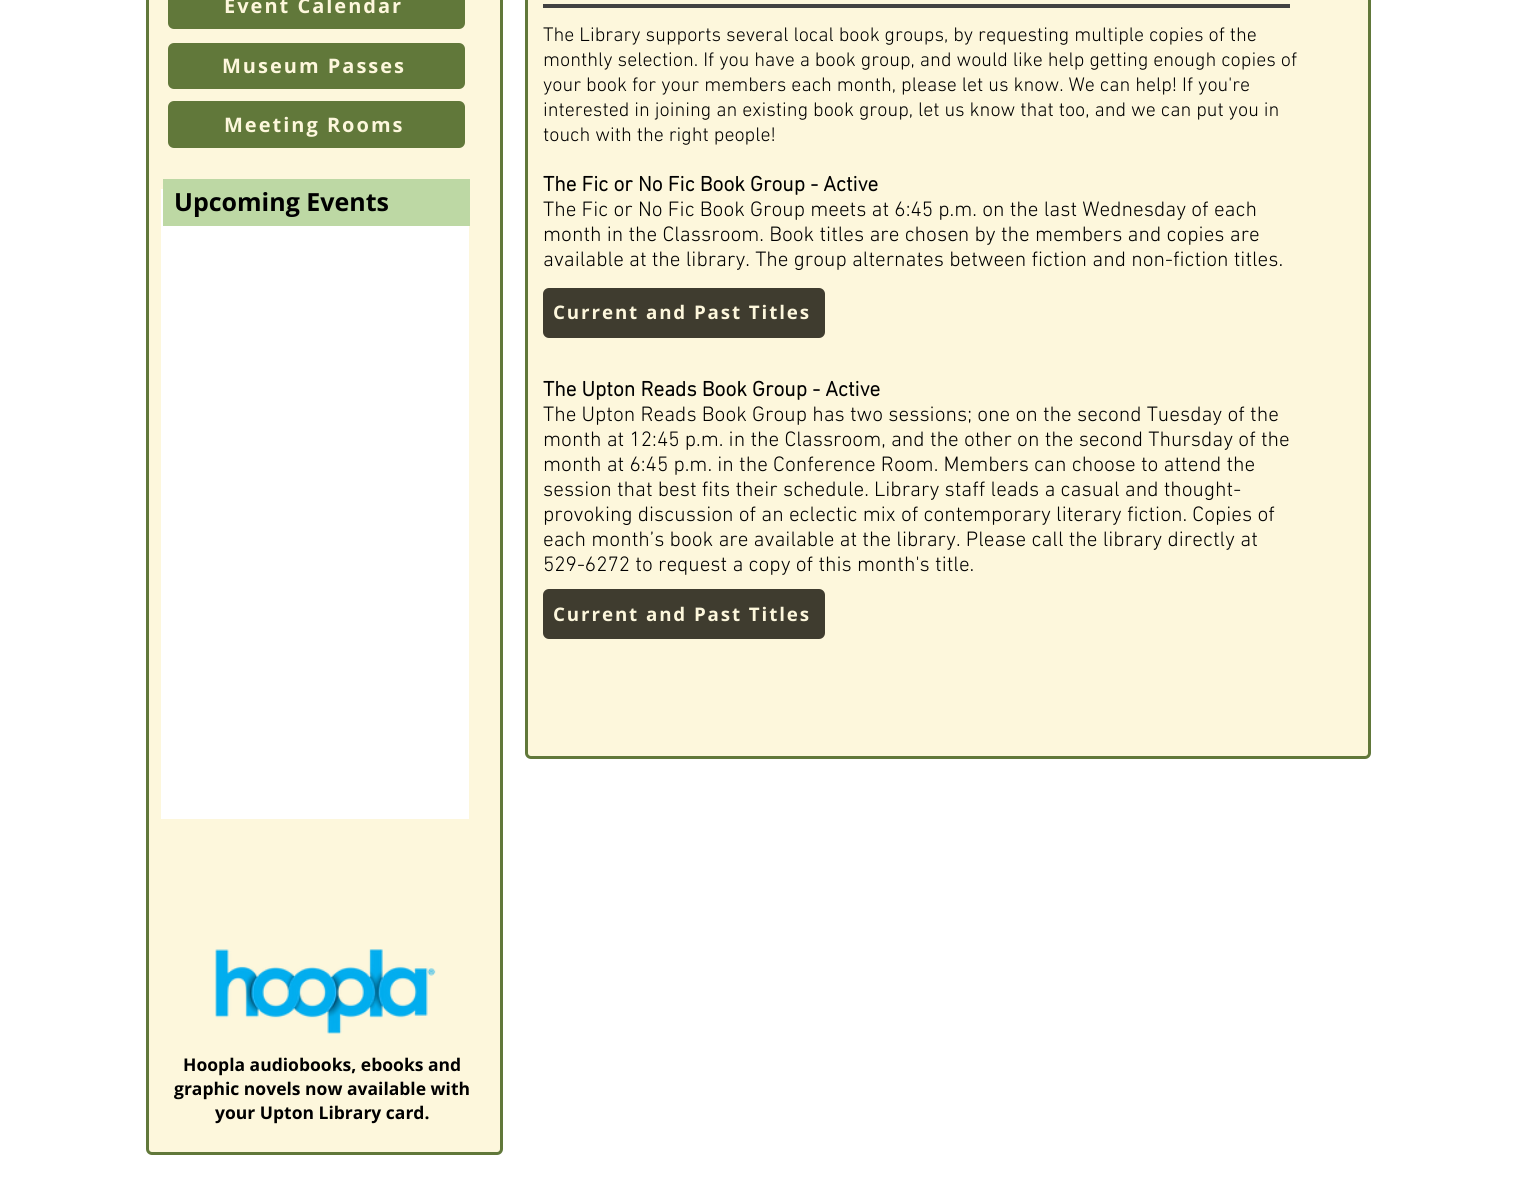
import math
import cairo

surface = cairo.ImageSurface(cairo.FORMAT_RGB24, 1517, 1204)
ctx = cairo.Context(surface)
options = cairo.FontOptions()
options.set_hint_metrics(cairo.HINT_METRICS_OFF)
options.set_hint_style(cairo.HINT_STYLE_NONE)
ctx.set_font_options(options)
ctx.set_miter_limit(4)


def set_color(code):
    ctx.set_source_rgb(*(v / 255 for v in bytes.fromhex(code[-6:])))


def draw_text(x, y, s, family, size, color, bold=False, italic=False):
    ctx.select_font_face(family, cairo.FONT_SLANT_ITALIC if italic else cairo.FONT_SLANT_NORMAL, cairo.FONT_WEIGHT_BOLD if bold else cairo.FONT_WEIGHT_NORMAL)
    ctx.set_font_size(size)
    set_color(color)
    ctx.move_to(x, y)
    ctx.show_text(s)


def draw_spaced(x, y, s, letter, word):
    ctx.move_to(x, y)
    for ch in s:
        ctx.show_text(ch)
        ctx.rel_move_to(letter + word * (ch == ' '), 0)


def fill_rect(x, y, w, h, color):
    set_color(color)
    ctx.rectangle(x, y, w, h)
    ctx.fill()


def rounded_rect(x, y, w, h, r):
    ctx.new_sub_path()
    for i, (u, v) in enumerate([(x + w - r, y + h - r), (x + r, y + h - r), (x + r, y + r), (x + w - r, y + r)]):
        ctx.arc(u, v, r, i * math.pi / 2, (i + 1) * math.pi / 2)
    ctx.close_path()


def draw_image(path, x, y, w, h):
    ctx.save()
    ctx.set_source_surface(cairo.ImageSurface.create_from_png(path), x, y)
    ctx.rectangle(x, y, w, h)
    ctx.fill()
    ctx.restore()


set_color("#ffffff")
ctx.paint()
set_color("#fdf7dc")
rounded_rect(147.5, -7.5, 354, 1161, 4.5)
ctx.fill_preserve()
set_color("#61783a")
ctx.set_line_width(3)
ctx.stroke()
rounded_rect(168, -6, 297, 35, 6)
ctx.fill()
ctx.select_font_face("Open Sans", cairo.FONT_SLANT_NORMAL, cairo.FONT_WEIGHT_BOLD)
ctx.set_font_size(20)
set_color("#fdf7dc")
draw_spaced(224, 13, "Event Calendar", 2, 0)
set_color("#61783a")
rounded_rect(168, 43, 297, 46, 6)
ctx.fill()
set_color("#fdf7dc")
draw_spaced(222, 73, "Museum Passes", 2, 0)
set_color("#61783a")
rounded_rect(168, 101, 297, 47, 6)
ctx.fill()
set_color("#fdf7dc")
draw_spaced(224, 132, "Meeting Rooms", 2, 0)
fill_rect(161, 189, 308, 630, "#ffffff")
fill_rect(163, 179, 307, 47, "#bdd8a4")
draw_text(174, 211, "Upcoming Events", "Open Sans", 25, "#000000", bold=True)
draw_image("assets/img1.png", 215, 949, 221, 85)
draw_text(183, 1071, "Hoopla audiobooks, ebooks and", "Open Sans", 17.5, "#000000", bold=True)
draw_text(174, 1095, "graphic novels now available with", "Open Sans", 17.5, "#000000", bold=True)
draw_text(215, 1119, "your Upton Library card.", "Open Sans", 17.5, "#000000", bold=True)
set_color("#fdf7dc")
rounded_rect(526.5, -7.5, 843, 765, 4.5)
ctx.fill_preserve()
set_color("#61783a")
ctx.stroke()
fill_rect(543, 4, 747, 4, "#424242")
draw_text(543, 41, "The Library supports several local book groups, by requesting multiple copies of the", "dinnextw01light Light", 20, "#000000")
draw_text(543, 66, "monthly selection. If you have a book group, and would like help getting enough copies of", "dinnextw01light Light", 20, "#000000")
draw_text(543, 91, "your book for your members each month, please let us know. We can help! If you're", "dinnextw01light Light", 20, "#000000")
draw_text(543, 116, "interested in joining an existing book group, let us know that too, and we can put you in", "dinnextw01light Light", 20, "#000000")
draw_text(543, 141, "touch with the right people!", "dinnextw01light Light", 20, "#000000")
draw_text(543, 191, "The Fic or No Fic Book Group - Active", "dinnextw01light", 21.25, "#000000", bold=True)
draw_text(543, 216, "The Fic or No Fic Book Group meets at 6:45 p.m. on the last Wednesday of each", "dinnextw01light Light", 21.25, "#000000")
draw_text(543, 241, "month in the Classroom. Book titles are chosen by the members and copies are", "dinnextw01light Light", 21.25, "#000000")
draw_text(543, 266, "available at the library. The group alternates between fiction and non-fiction titles.", "dinnextw01light Light", 21.25, "#000000")
draw_text(543, 396, "The Upton Reads Book Group - Active", "dinnextw01light", 21.25, "#000000", bold=True)
draw_text(543, 421, "The Upton Reads Book Group has two sessions; one on the second Tuesday of the", "dinnextw01light Light", 21.25, "#000000")
draw_text(543, 446, "month at 12:45 p.m. in the Classroom, and the other on the second Thursday of the", "dinnextw01light Light", 21.25, "#000000")
draw_text(543, 471, "month at 6:45 p.m. in the Conference Room. Members can choose to attend the", "dinnextw01light Light", 21.25, "#000000")
draw_text(543, 496, "session that best fits their schedule. Library staff leads a casual and thought-", "dinnextw01light Light", 21.25, "#000000")
draw_text(543, 521, "provoking discussion of an eclectic mix of contemporary literary fiction. Copies of", "dinnextw01light Light", 21.25, "#000000")
draw_text(543, 546, "each month’s book are available at the library. Please call the library directly at", "dinnextw01light Light", 21.25, "#000000")
draw_text(543, 571, "529-6272 to request a copy of this month's title.", "dinnextw01light Light", 21.25, "#000000")
set_color("#3f3c2f")
rounded_rect(543, 288, 282, 50, 6)
ctx.fill()
ctx.select_font_face("Open Sans", cairo.FONT_SLANT_NORMAL, cairo.FONT_WEIGHT_BOLD)
ctx.set_font_size(18.75)
set_color("#fdf7dc")
draw_spaced(553, 319, "Current and Past Titles", 1.9, 0)
set_color("#3f3c2f")
rounded_rect(543, 589, 282, 50, 6)
ctx.fill()
set_color("#fdf7dc")
draw_spaced(553, 621, "Current and Past Titles", 1.9, 0)
surface.write_to_png("output.png")
